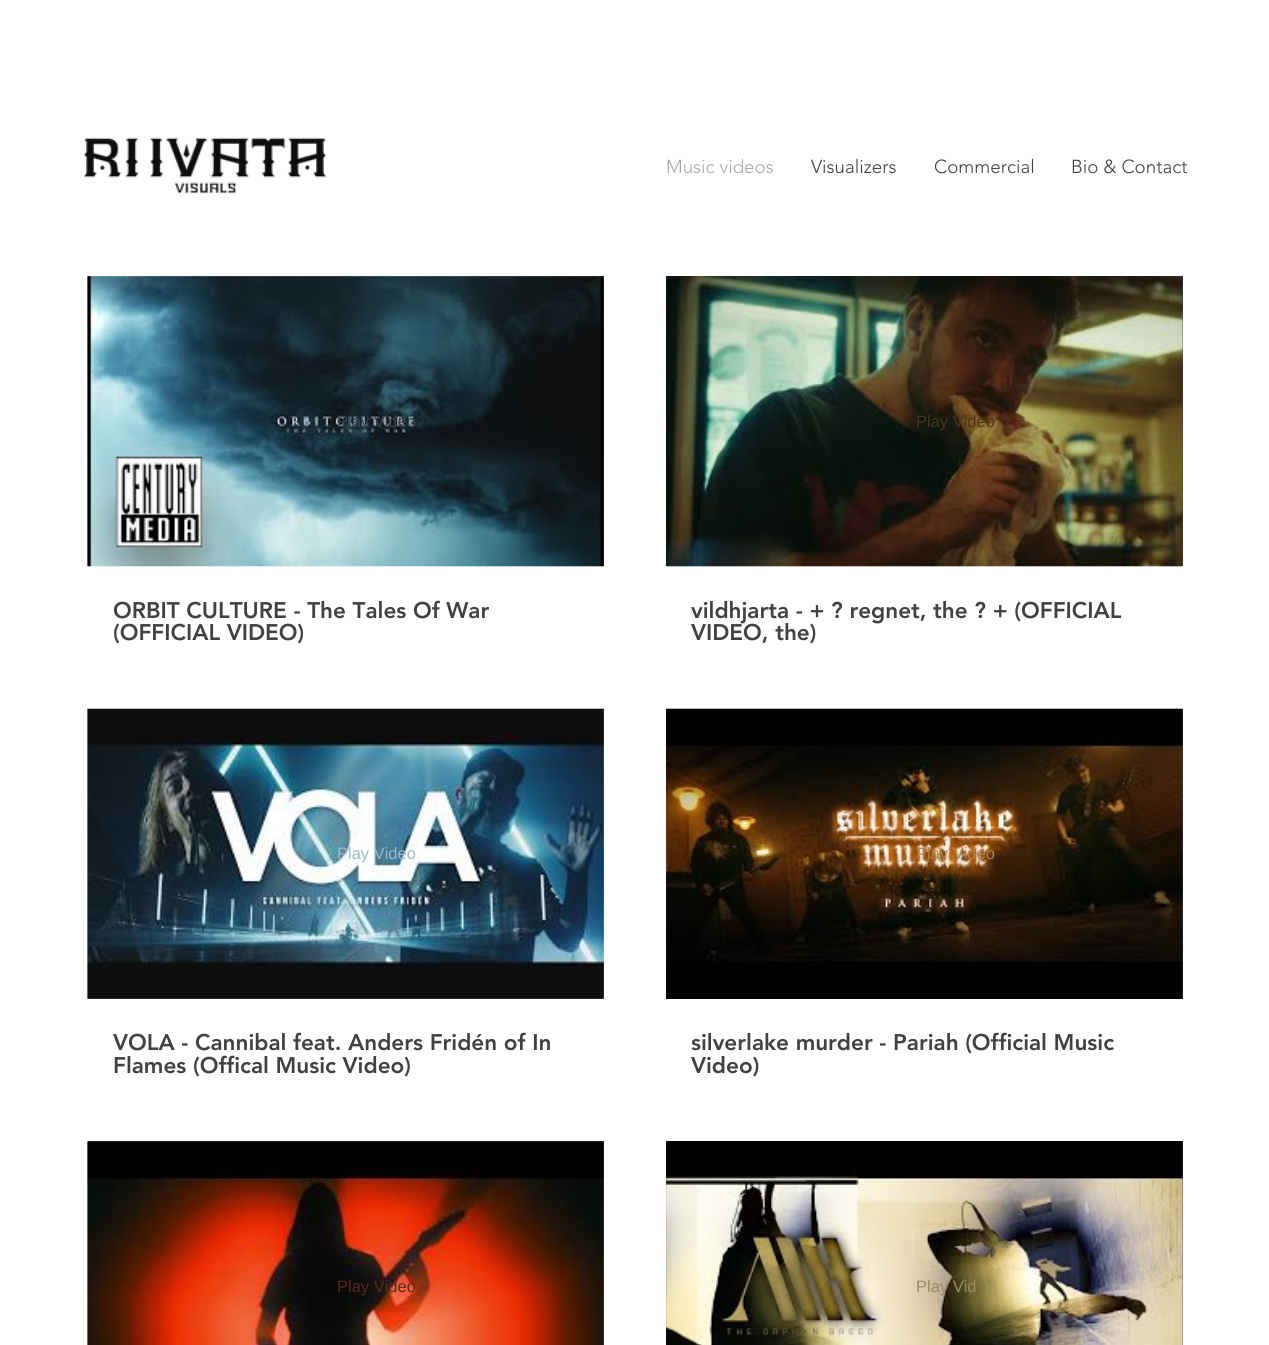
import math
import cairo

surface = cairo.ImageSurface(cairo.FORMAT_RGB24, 1269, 1345)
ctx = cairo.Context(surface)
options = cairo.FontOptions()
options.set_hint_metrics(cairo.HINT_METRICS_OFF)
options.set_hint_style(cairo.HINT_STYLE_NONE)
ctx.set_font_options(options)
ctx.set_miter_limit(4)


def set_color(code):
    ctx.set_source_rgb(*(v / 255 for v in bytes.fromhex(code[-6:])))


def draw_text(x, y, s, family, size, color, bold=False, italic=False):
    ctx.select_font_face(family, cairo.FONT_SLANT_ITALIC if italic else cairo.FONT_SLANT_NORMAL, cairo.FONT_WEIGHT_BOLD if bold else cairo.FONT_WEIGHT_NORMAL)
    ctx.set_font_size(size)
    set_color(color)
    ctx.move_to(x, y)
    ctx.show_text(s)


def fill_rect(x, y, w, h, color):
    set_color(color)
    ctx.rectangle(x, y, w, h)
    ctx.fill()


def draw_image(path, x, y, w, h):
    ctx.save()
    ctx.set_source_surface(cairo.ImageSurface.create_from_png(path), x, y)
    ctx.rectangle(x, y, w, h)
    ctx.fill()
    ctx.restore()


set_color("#ffffff")
ctx.paint()
draw_image("assets/img1.png", 84, 137, 242, 57)
draw_text(666, 173, "Music videos", "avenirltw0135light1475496 Light", 18.75, "#a8a8a7")
draw_text(811, 173, "Visualizers", "avenirltw0135light1475496 Light", 18.75, "#414141")
draw_text(934, 173, "Commercial", "avenirltw0135light1475496 Light", 18.75, "#414141")
draw_text(1071, 173, "Bio & Contact", "avenirltw0135light1475496 Light", 18.75, "#414141")
draw_image("assets/img2.png", 87, 276, 517, 291)
draw_image("assets/img3.png", 87, 276, 517, 291)
draw_text(337, 427, "Play Video", "Liberation Sans", 16.5, "#37444b")
draw_text(113, 618, "ORBIT CULTURE - The Tales Of War", "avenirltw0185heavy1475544 Black", 22.5, "#414141")
draw_text(113, 640, "(OFFICIAL VIDEO)", "avenirltw0185heavy1475544 Black", 22.5, "#414141")
fill_rect(666, 276, 517, 290, "#35465c")
draw_image("assets/img4.png", 666, 276, 517, 291)
draw_image("assets/img5.png", 666, 276, 517, 291)
draw_text(916, 427, "Play Video", "Liberation Sans", 16.5, "#47371b")
draw_text(691, 618, "vildhjarta - + ? regnet, the ? + (OFFICIAL", "avenirltw0185heavy1475544 Black", 22.5, "#414141")
draw_text(691, 640, "VIDEO, the)", "avenirltw0185heavy1475544 Black", 22.5, "#414141")
draw_image("assets/img6.png", 87, 708, 517, 291)
draw_image("assets/img7.png", 87, 708, 517, 291)
draw_text(337, 859, "Play Video", "Liberation Sans", 16.5, "#9dbac7")
draw_text(113, 1050, "VOLA - Cannibal feat. Anders Fridén of In", "avenirltw0185heavy1475544 Black", 22.5, "#414141")
draw_text(113, 1073, "Flames (Offical Music Video)", "avenirltw0185heavy1475544 Black", 22.5, "#414141")
fill_rect(666, 709, 517, 290, "#35465c")
draw_image("assets/img8.png", 666, 708, 517, 291)
draw_image("assets/img9.png", 666, 708, 517, 291)
draw_text(916, 859, "Play Video", "Liberation Sans", 16.5, "#af804e")
draw_text(691, 1050, "silverlake murder - Pariah (Official Music", "avenirltw0185heavy1475544 Black", 22.5, "#414141")
draw_text(691, 1073, "Video)", "avenirltw0185heavy1475544 Black", 22.5, "#414141")
draw_image("assets/img10.png", 87, 1141, 517, 204)
draw_image("assets/img11.png", 87, 1141, 517, 204)
draw_text(337, 1292, "Play Video", "Liberation Sans", 16.5, "#5b281a")
fill_rect(666, 1141, 517, 204, "#35465c")
draw_image("assets/img12.png", 666, 1141, 517, 204)
draw_image("assets/img13.png", 666, 1141, 517, 204)
draw_text(916, 1292, "Play Vid", "Liberation Sans", 16.5, "#988c63")
surface.write_to_png("output.png")
